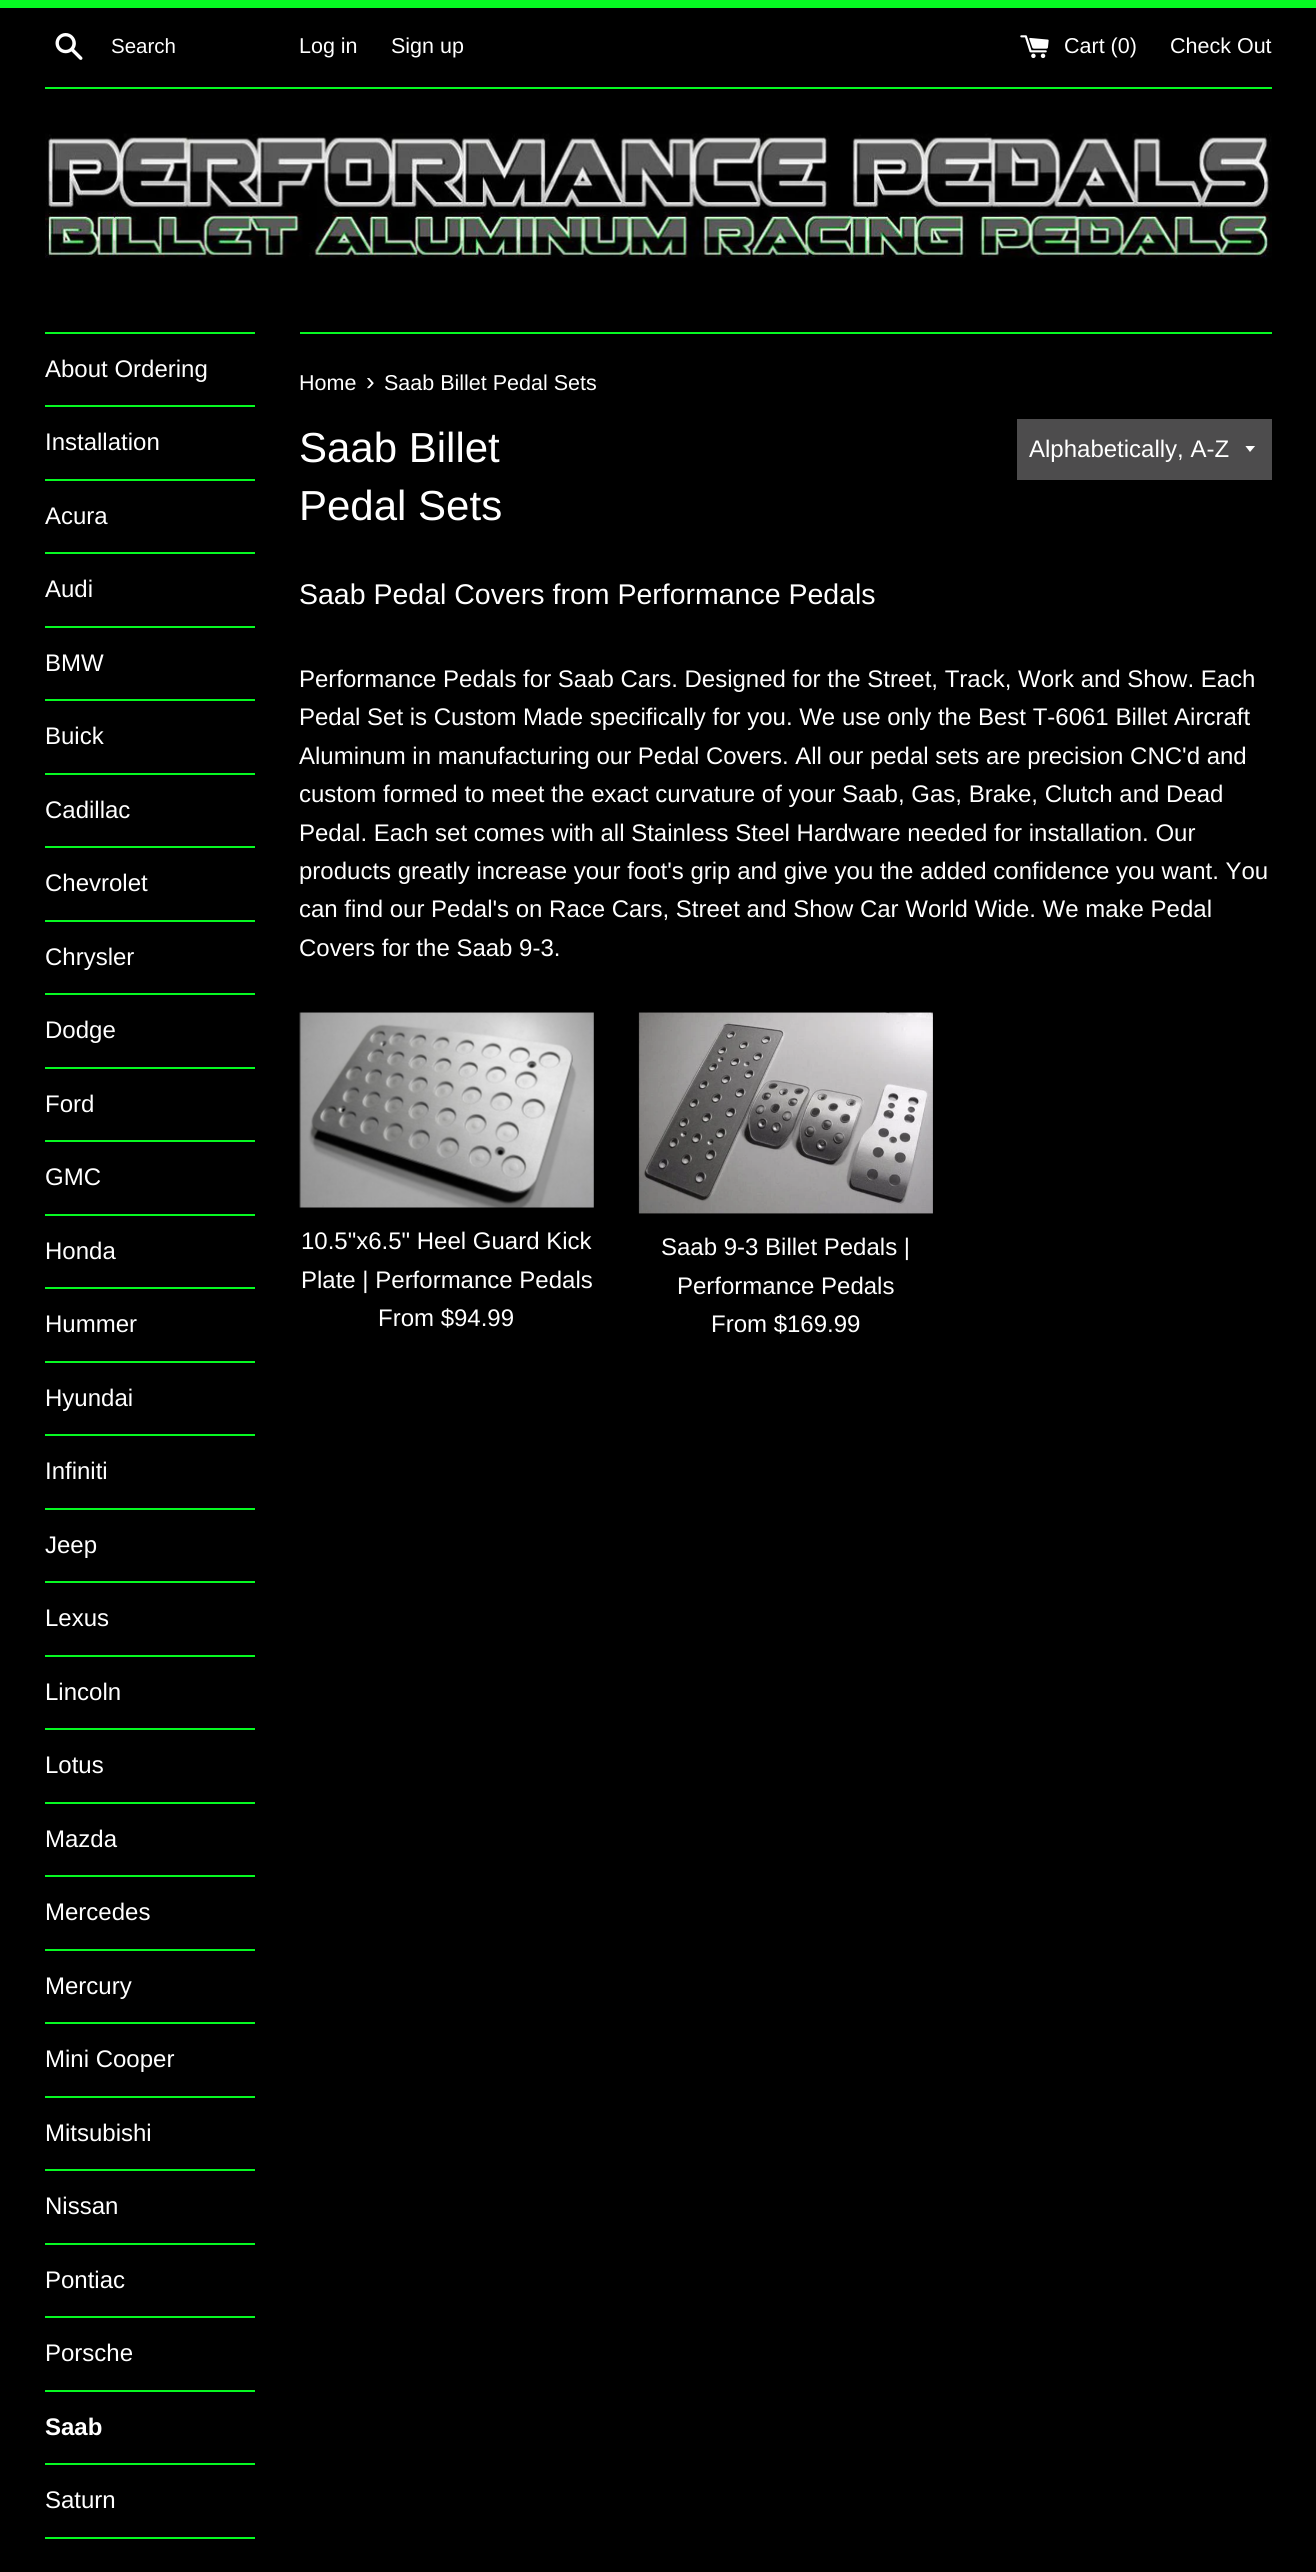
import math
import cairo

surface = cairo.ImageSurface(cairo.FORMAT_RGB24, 1316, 2572)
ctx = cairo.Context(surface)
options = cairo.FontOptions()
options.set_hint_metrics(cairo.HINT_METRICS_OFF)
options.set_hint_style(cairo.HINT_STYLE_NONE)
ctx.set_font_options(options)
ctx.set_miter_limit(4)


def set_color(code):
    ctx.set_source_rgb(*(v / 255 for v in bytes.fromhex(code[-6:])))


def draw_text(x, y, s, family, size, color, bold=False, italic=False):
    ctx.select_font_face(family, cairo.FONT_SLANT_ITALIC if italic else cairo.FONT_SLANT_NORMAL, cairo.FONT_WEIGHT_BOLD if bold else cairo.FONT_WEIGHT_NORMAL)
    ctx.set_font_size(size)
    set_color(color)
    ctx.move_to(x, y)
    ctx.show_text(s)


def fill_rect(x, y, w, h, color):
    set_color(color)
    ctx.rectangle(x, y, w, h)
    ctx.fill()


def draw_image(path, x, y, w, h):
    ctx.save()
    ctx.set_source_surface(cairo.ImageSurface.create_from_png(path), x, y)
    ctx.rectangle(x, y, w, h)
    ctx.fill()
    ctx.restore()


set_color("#000000")
ctx.paint()
fill_rect(0, 0, 1316, 8, "#06f922")
draw_image("assets/img1.png", 55, 33, 28, 27)
draw_text(111, 53, "Search", "Liberation Sans", 20.5, "#ffffff")
draw_text(299, 53, "Log in", "Liberation Sans", 21.5, "#ffffff")
draw_text(391, 53, "Sign up", "Liberation Sans", 21.5, "#ffffff")
draw_image("assets/img2.png", 1020, 35, 29, 24)
draw_text(1064, 53, "Cart (0)", "Liberation Sans", 21.5, "#ffffff")
draw_text(1170, 53, "Check Out", "Liberation Sans", 21.5, "#ffffff")
fill_rect(45, 87, 1227, 2, "#06f922")
draw_image("assets/img3.png", 45, 133, 1227, 127)
fill_rect(45, 332, 210, 2, "#06f922")
fill_rect(45, 405, 210, 2, "#06f922")
draw_text(45, 377, "About Ordering", "Liberation Sans", 24, "#ffffff")
fill_rect(45, 479, 210, 2, "#06f922")
draw_text(45, 450, "Installation", "Liberation Sans", 24, "#ffffff")
fill_rect(45, 552, 210, 2, "#06f922")
draw_text(45, 524, "Acura", "Liberation Sans", 24, "#ffffff")
fill_rect(45, 626, 210, 2, "#06f922")
draw_text(45, 597, "Audi", "Liberation Sans", 24, "#ffffff")
fill_rect(45, 699, 210, 2, "#06f922")
draw_text(45, 671, "BMW", "Liberation Sans", 24, "#ffffff")
fill_rect(45, 773, 210, 2, "#06f922")
draw_text(45, 744, "Buick", "Liberation Sans", 24, "#ffffff")
fill_rect(45, 846, 210, 2, "#06f922")
draw_text(45, 818, "Cadillac", "Liberation Sans", 24, "#ffffff")
fill_rect(45, 920, 210, 2, "#06f922")
draw_text(45, 891, "Chevrolet", "Liberation Sans", 24, "#ffffff")
fill_rect(45, 993, 210, 2, "#06f922")
draw_text(45, 965, "Chrysler", "Liberation Sans", 24, "#ffffff")
fill_rect(45, 1067, 210, 2, "#06f922")
draw_text(45, 1038, "Dodge", "Liberation Sans", 24, "#ffffff")
fill_rect(45, 1140, 210, 2, "#06f922")
draw_text(45, 1112, "Ford", "Liberation Sans", 24, "#ffffff")
fill_rect(45, 1214, 210, 2, "#06f922")
draw_text(45, 1185, "GMC", "Liberation Sans", 24, "#ffffff")
fill_rect(45, 1287, 210, 2, "#06f922")
draw_text(45, 1259, "Honda", "Liberation Sans", 24, "#ffffff")
fill_rect(45, 1361, 210, 2, "#06f922")
draw_text(45, 1332, "Hummer", "Liberation Sans", 24, "#ffffff")
fill_rect(45, 1434, 210, 2, "#06f922")
draw_text(45, 1406, "Hyundai", "Liberation Sans", 24, "#ffffff")
fill_rect(45, 1508, 210, 2, "#06f922")
draw_text(45, 1479, "Infiniti", "Liberation Sans", 24, "#ffffff")
fill_rect(45, 1581, 210, 2, "#06f922")
draw_text(45, 1553, "Jeep", "Liberation Sans", 24, "#ffffff")
fill_rect(45, 1655, 210, 2, "#06f922")
draw_text(45, 1626, "Lexus", "Liberation Sans", 24, "#ffffff")
fill_rect(45, 1728, 210, 2, "#06f922")
draw_text(45, 1700, "Lincoln", "Liberation Sans", 24, "#ffffff")
fill_rect(45, 1802, 210, 2, "#06f922")
draw_text(45, 1773, "Lotus", "Liberation Sans", 24, "#ffffff")
fill_rect(45, 1875, 210, 2, "#06f922")
draw_text(45, 1847, "Mazda", "Liberation Sans", 24, "#ffffff")
fill_rect(45, 1949, 210, 2, "#06f922")
draw_text(45, 1920, "Mercedes", "Liberation Sans", 24, "#ffffff")
fill_rect(45, 2022, 210, 2, "#06f922")
draw_text(45, 1994, "Mercury", "Liberation Sans", 24, "#ffffff")
fill_rect(45, 2096, 210, 2, "#06f922")
draw_text(45, 2067, "Mini Cooper", "Liberation Sans", 24, "#ffffff")
fill_rect(45, 2169, 210, 2, "#06f922")
draw_text(45, 2141, "Mitsubishi", "Liberation Sans", 24, "#ffffff")
fill_rect(45, 2243, 210, 2, "#06f922")
draw_text(45, 2214, "Nissan", "Liberation Sans", 24, "#ffffff")
fill_rect(45, 2316, 210, 2, "#06f922")
draw_text(45, 2288, "Pontiac", "Liberation Sans", 24, "#ffffff")
fill_rect(45, 2390, 210, 2, "#06f922")
draw_text(45, 2361, "Porsche", "Liberation Sans", 24, "#ffffff")
fill_rect(45, 2463, 210, 2, "#06f922")
draw_text(45, 2435, "Saab", "Liberation Sans", 24, "#ffffff", bold=True)
fill_rect(45, 2537, 210, 2, "#06f922")
draw_text(45, 2508, "Saturn", "Liberation Sans", 24, "#ffffff")
fill_rect(300, 332, 972, 2, "#06f922")
draw_text(299, 390, "Home", "Liberation Sans", 21.5, "#ffffff")
draw_text(366, 390, "›", "Liberation Sans", 26, "#ffffff")
draw_text(384, 390, "Saab Billet Pedal Sets", "Liberation Sans", 21.5, "#ffffff")
draw_text(299, 462, "Saab Billet", "Liberation Sans", 42, "#ffffff")
draw_text(299, 520, "Pedal Sets", "Liberation Sans", 42, "#ffffff")
fill_rect(1017, 419, 255, 61, "#4d4c4d")
ctx.save()
ctx.rectangle(1245, 446, 12, 7)
ctx.clip()
set_color("#ffffff")
ctx.new_path()
ctx.move_to(1245, 445.5)
ctx.line_to(1250, 452)
ctx.line_to(1255.5, 445.5)
ctx.close_path()
ctx.fill()
ctx.restore()
draw_text(1029, 457, "Alphabetically, A-Z", "Liberation Sans", 24, "#ffffff")
draw_text(299, 604, "Saab Pedal Covers from Performance Pedals", "Liberation Sans", 28.5, "#ffffff")
draw_text(299, 687, "Performance Pedals for Saab Cars. Designed for the Street, Track, Work and Show. Each", "Liberation Sans", 24, "#ffffff")
draw_text(299, 725, "Pedal Set is Custom Made specifically for you. We use only the Best T-6061 Billet Aircraft", "Liberation Sans", 24, "#ffffff")
draw_text(299, 764, "Aluminum in manufacturing our Pedal Covers. All our pedal sets are precision CNC'd and", "Liberation Sans", 24, "#ffffff")
draw_text(299, 802, "custom formed to meet the exact curvature of your Saab, Gas, Brake, Clutch and Dead", "Liberation Sans", 24, "#ffffff")
draw_text(299, 841, "Pedal. Each set comes with all Stainless Steel Hardware needed for installation. Our", "Liberation Sans", 24, "#ffffff")
draw_text(299, 879, "products greatly increase your foot's grip and give you the added confidence you want. You", "Liberation Sans", 24, "#ffffff")
draw_text(299, 917, "can find our Pedal's on Race Cars, Street and Show Car World Wide. We make Pedal", "Liberation Sans", 24, "#ffffff")
draw_text(299, 956, "Covers for the Saab 9-3.", "Liberation Sans", 24, "#ffffff")
draw_image("assets/img4.png", 299, 1012, 295, 196)
draw_text(301, 1249, "10.5\"x6.5\" Heel Guard Kick", "Liberation Sans", 24, "#ffffff")
draw_text(301, 1288, "Plate | Performance Pedals", "Liberation Sans", 24, "#ffffff")
draw_text(378, 1326, "From $94.99", "Liberation Sans", 24, "#ffffff")
draw_image("assets/img5.png", 638, 1012, 295, 202)
draw_text(661, 1255, "Saab 9-3 Billet Pedals |", "Liberation Sans", 24, "#ffffff")
draw_text(677, 1294, "Performance Pedals", "Liberation Sans", 24, "#ffffff")
draw_text(711, 1332, "From $169.99", "Liberation Sans", 24, "#ffffff")
surface.write_to_png("output.png")
